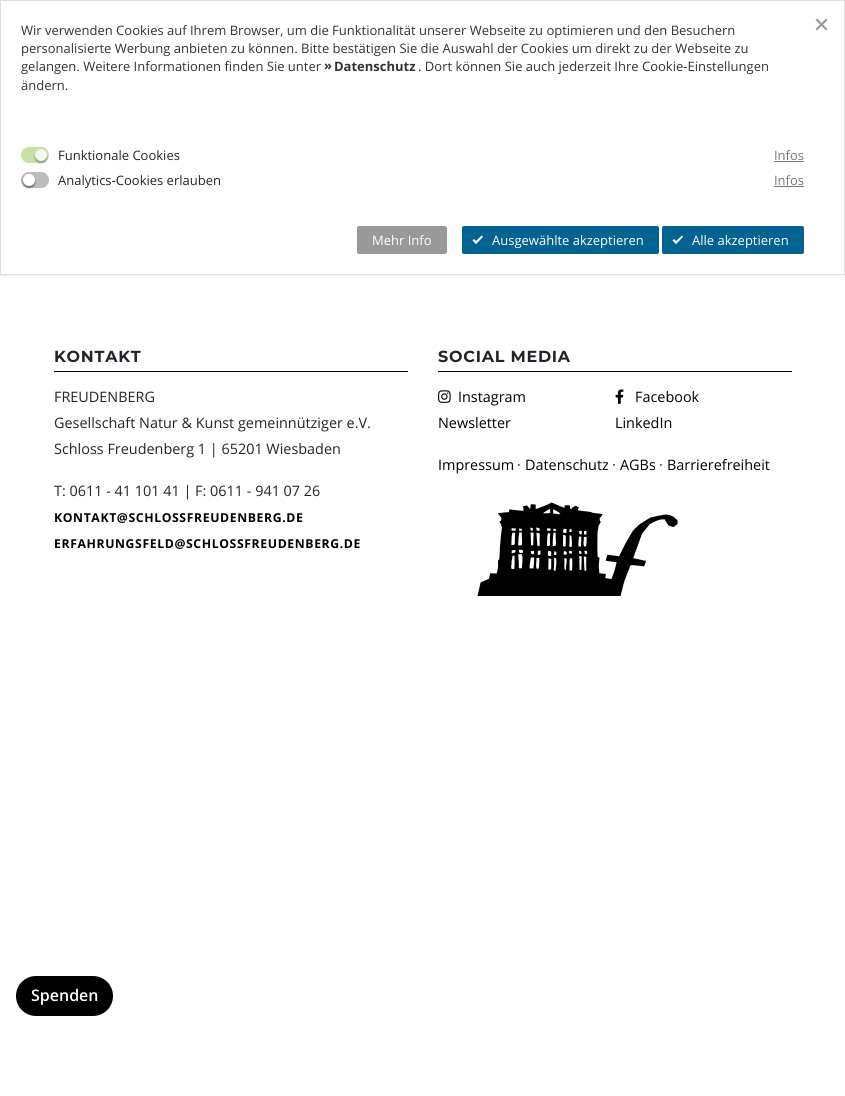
import math
import cairo

surface = cairo.ImageSurface(cairo.FORMAT_RGB24, 845, 1096)
ctx = cairo.Context(surface)
options = cairo.FontOptions()
options.set_hint_metrics(cairo.HINT_METRICS_OFF)
options.set_hint_style(cairo.HINT_STYLE_NONE)
ctx.set_font_options(options)
ctx.set_miter_limit(4)


def set_color(code):
    ctx.set_source_rgb(*(v / 255 for v in bytes.fromhex(code[-6:])))


def draw_text(x, y, s, family, size, color, bold=False, italic=False):
    ctx.select_font_face(family, cairo.FONT_SLANT_ITALIC if italic else cairo.FONT_SLANT_NORMAL, cairo.FONT_WEIGHT_BOLD if bold else cairo.FONT_WEIGHT_NORMAL)
    ctx.set_font_size(size)
    set_color(color)
    ctx.move_to(x, y)
    ctx.show_text(s)


def draw_spaced(x, y, s, letter, word):
    ctx.move_to(x, y)
    for ch in s:
        ctx.show_text(ch)
        ctx.rel_move_to(letter + word * (ch == ' '), 0)


def fill_rect(x, y, w, h, color):
    set_color(color)
    ctx.rectangle(x, y, w, h)
    ctx.fill()


def rounded_rect(x, y, w, h, r):
    ctx.new_sub_path()
    for i, (u, v) in enumerate([(x + w - r, y + h - r), (x + r, y + h - r), (x + r, y + r), (x + w - r, y + r)]):
        ctx.arc(u, v, r, i * math.pi / 2, (i + 1) * math.pi / 2)
    ctx.close_path()


def draw_shadow(x, y, w, h, r, blur, alpha):
    ctx.push_group_with_content(cairo.CONTENT_ALPHA)
    ctx.set_operator(cairo.OPERATOR_SOURCE)
    for i in range(15, -16, -2):
        e = blur * i / 6
        if min(w, h) + 2 * e > 0:
            ctx.set_source_rgba(0, 0, 0, alpha * math.erfc((i - 1) / 8.5) / 2)
            rounded_rect(x - e, y - e, w + 2 * e, h + 2 * e, max(0, min(r + e + blur * .6, min(w, h) / 2 + e)))
            ctx.fill()
    ctx.mask(ctx.pop_group())


def draw_image(path, x, y, w, h):
    ctx.save()
    ctx.set_source_surface(cairo.ImageSurface.create_from_png(path), x, y)
    ctx.rectangle(x, y, w, h)
    ctx.fill()
    ctx.restore()


set_color("#ffffff")
ctx.paint()
set_color("#000000")
draw_shadow(0, 0, 845, 275, 0, 1.5, 0.15)
set_color("#ffffff")
ctx.rectangle(0.5, 0.5, 844, 274)
ctx.fill_preserve()
set_color("#dddddd")
ctx.set_line_width(1)
ctx.stroke()
draw_text(21, 35, "Wir verwenden Cookies auf Ihrem Browser, um die Funktionalität unserer Webseite zu optimieren und den Besuchern", "Open Sans", 13, "#333333")
draw_text(21, 53, "personalisierte Werbung anbieten zu können. Bitte bestätigen Sie die Auswahl der Cookies um direkt zu der Webseite zu", "Open Sans", 13, "#333333")
draw_text(21, 71, "gelangen. Weitere Informationen finden Sie unter", "Open Sans", 13, "#333333")
draw_text(324, 70, "»", "Open Sans", 13, "#333333", bold=True)
draw_text(334, 71, "Datenschutz", "Open Sans", 13, "#333333", bold=True)
draw_text(418, 71, ". Dort können Sie auch jederzeit Ihre Cookie-Einstellungen", "Open Sans", 13, "#333333")
draw_text(21, 90, "ändern.", "Open Sans", 13, "#333333")
set_color("#999999")
ctx.new_path()
ctx.move_to(815.5, 29)
ctx.line_to(826, 18.5)
ctx.line_to(827.5, 20)
ctx.line_to(817, 30.5)
ctx.close_path()
ctx.fill()
ctx.new_path()
ctx.move_to(817, 18.5)
ctx.line_to(827.5, 29)
ctx.line_to(826, 30.5)
ctx.line_to(815.5, 20)
ctx.close_path()
ctx.fill()
set_color("#c5e1a5")
rounded_rect(21, 147, 28, 16, 8)
ctx.fill()
set_color("#000000")
draw_shadow(35, 151, 12, 12, 6, 1, 0.32)
set_color("#f3f9ed")
ctx.arc(41, 155, 6, 0, 2 * math.pi)
ctx.fill()
draw_text(58, 160, "Funktionale Cookies", "Open Sans", 13, "#212529")
draw_text(774, 160, "Infos", "Open Sans", 13, "#777777")
fill_rect(774, 161, 30, 1, "#777777")
set_color("#bbbbbb")
rounded_rect(21, 172, 28, 16, 8)
ctx.fill()
set_color("#000000")
draw_shadow(23, 176, 12, 12, 6, 1, 0.4)
set_color("#ffffff")
ctx.arc(29, 180, 6, 0, 2 * math.pi)
ctx.fill()
draw_text(58, 185, "Analytics-Cookies erlauben", "Open Sans", 13, "#212529")
draw_text(774, 185, "Infos", "Open Sans", 13, "#777777")
fill_rect(774, 186, 30, 1, "#777777")
set_color("#999999")
rounded_rect(357, 226, 90, 28, 2)
ctx.fill()
draw_text(372, 245, "Mehr Info", "Open Sans", 13, "#ffffff")
set_color("#026291")
rounded_rect(462, 226, 197, 28, 2)
ctx.fill()
set_color("#ffffff")
ctx.new_path()
ctx.move_to(481.5, 235.5)
ctx.line_to(483, 237)
ctx.line_to(476, 244)
ctx.line_to(474.5, 242.5)
ctx.close_path()
ctx.fill()
ctx.new_path()
ctx.move_to(474, 239)
ctx.line_to(477.5, 242.5)
ctx.line_to(476, 244)
ctx.line_to(472.5, 240.5)
ctx.close_path()
ctx.fill()
draw_text(492, 245, "Ausgewählte akzeptieren", "Open Sans", 13, "#ffffff")
set_color("#026291")
rounded_rect(662, 226, 142, 28, 2)
ctx.fill()
set_color("#ffffff")
ctx.new_path()
ctx.move_to(682, 235.5)
ctx.line_to(683, 237)
ctx.line_to(676, 244)
ctx.line_to(674.5, 242.5)
ctx.close_path()
ctx.fill()
ctx.new_path()
ctx.move_to(674, 239)
ctx.line_to(677.5, 242.5)
ctx.line_to(676, 244)
ctx.line_to(672.5, 240.5)
ctx.close_path()
ctx.fill()
draw_text(692, 245, "Alle akzeptieren", "Open Sans", 13, "#ffffff")
fill_rect(54, 371, 354, 1, "#000000")
ctx.select_font_face("Montserrat", cairo.FONT_SLANT_NORMAL, cairo.FONT_WEIGHT_BOLD)
ctx.set_font_size(16)
set_color("#212529")
draw_spaced(54, 362, "KONTAKT", 0.75, 0)
draw_text(54, 402, "FREUDENBERG", "Open Sans", 14.4, "#212529")
draw_text(54, 428, "Gesellschaft Natur & Kunst gemeinnütziger e.V.", "Open Sans", 14.4, "#212529")
draw_text(54, 454, "Schloss Freudenberg 1 | 65201 Wiesbaden", "Open Sans", 14.4, "#212529")
draw_text(54, 496, "T: 0611 - 41 101 41 | F: 0611 - 941 07 26", "Open Sans", 14.4, "#212529")
ctx.select_font_face("Open Sans", cairo.FONT_SLANT_NORMAL, cairo.FONT_WEIGHT_BOLD)
ctx.set_font_size(12.25)
set_color("#000000")
draw_spaced(54, 522, "KONTAKT@SCHLOSSFREUDENBERG.DE", 0.6, 0)
draw_spaced(54, 548, "ERFAHRUNGSFELD@SCHLOSSFREUDENBERG.DE", 0.6, 0)
fill_rect(438, 371, 354, 1, "#000000")
ctx.select_font_face("Montserrat", cairo.FONT_SLANT_NORMAL, cairo.FONT_WEIGHT_BOLD)
ctx.set_font_size(16)
set_color("#212529")
draw_spaced(438, 362, "SOCIAL MEDIA", 0.75, 0)
draw_image("assets/img1.png", 438, 390, 13, 13)
draw_text(458, 402, "Instagram", "Open Sans", 14.4, "#000000")
draw_image("assets/img2.png", 615, 389, 9, 15)
draw_text(635, 402, "Facebook", "Open Sans", 14.4, "#000000")
draw_text(438, 428, "Newsletter", "Open Sans", 14.4, "#000000")
draw_text(615, 428, "LinkedIn", "Open Sans", 14.4, "#000000")
draw_text(438, 470, "Impressum", "Open Sans", 14.4, "#000000")
draw_text(517, 470, "·", "Open Sans", 14.4, "#212529")
draw_text(525, 470, "Datenschutz", "Open Sans", 14.4, "#000000")
draw_text(612, 470, "·", "Open Sans", 14.4, "#212529")
draw_text(620, 470, "AGBs", "Open Sans", 14.4, "#000000")
draw_text(659, 470, "·", "Open Sans", 14.4, "#212529")
draw_text(667, 470, "Barrierefreiheit", "Open Sans", 14.4, "#000000")
draw_image("assets/img3.png", 477, 502, 201, 94)
rounded_rect(16, 976, 97, 40, 20)
ctx.fill()
draw_text(31, 1001, "Spenden", "Open Sans SemiBold", 16, "#ffffff")
surface.write_to_png("output.png")
